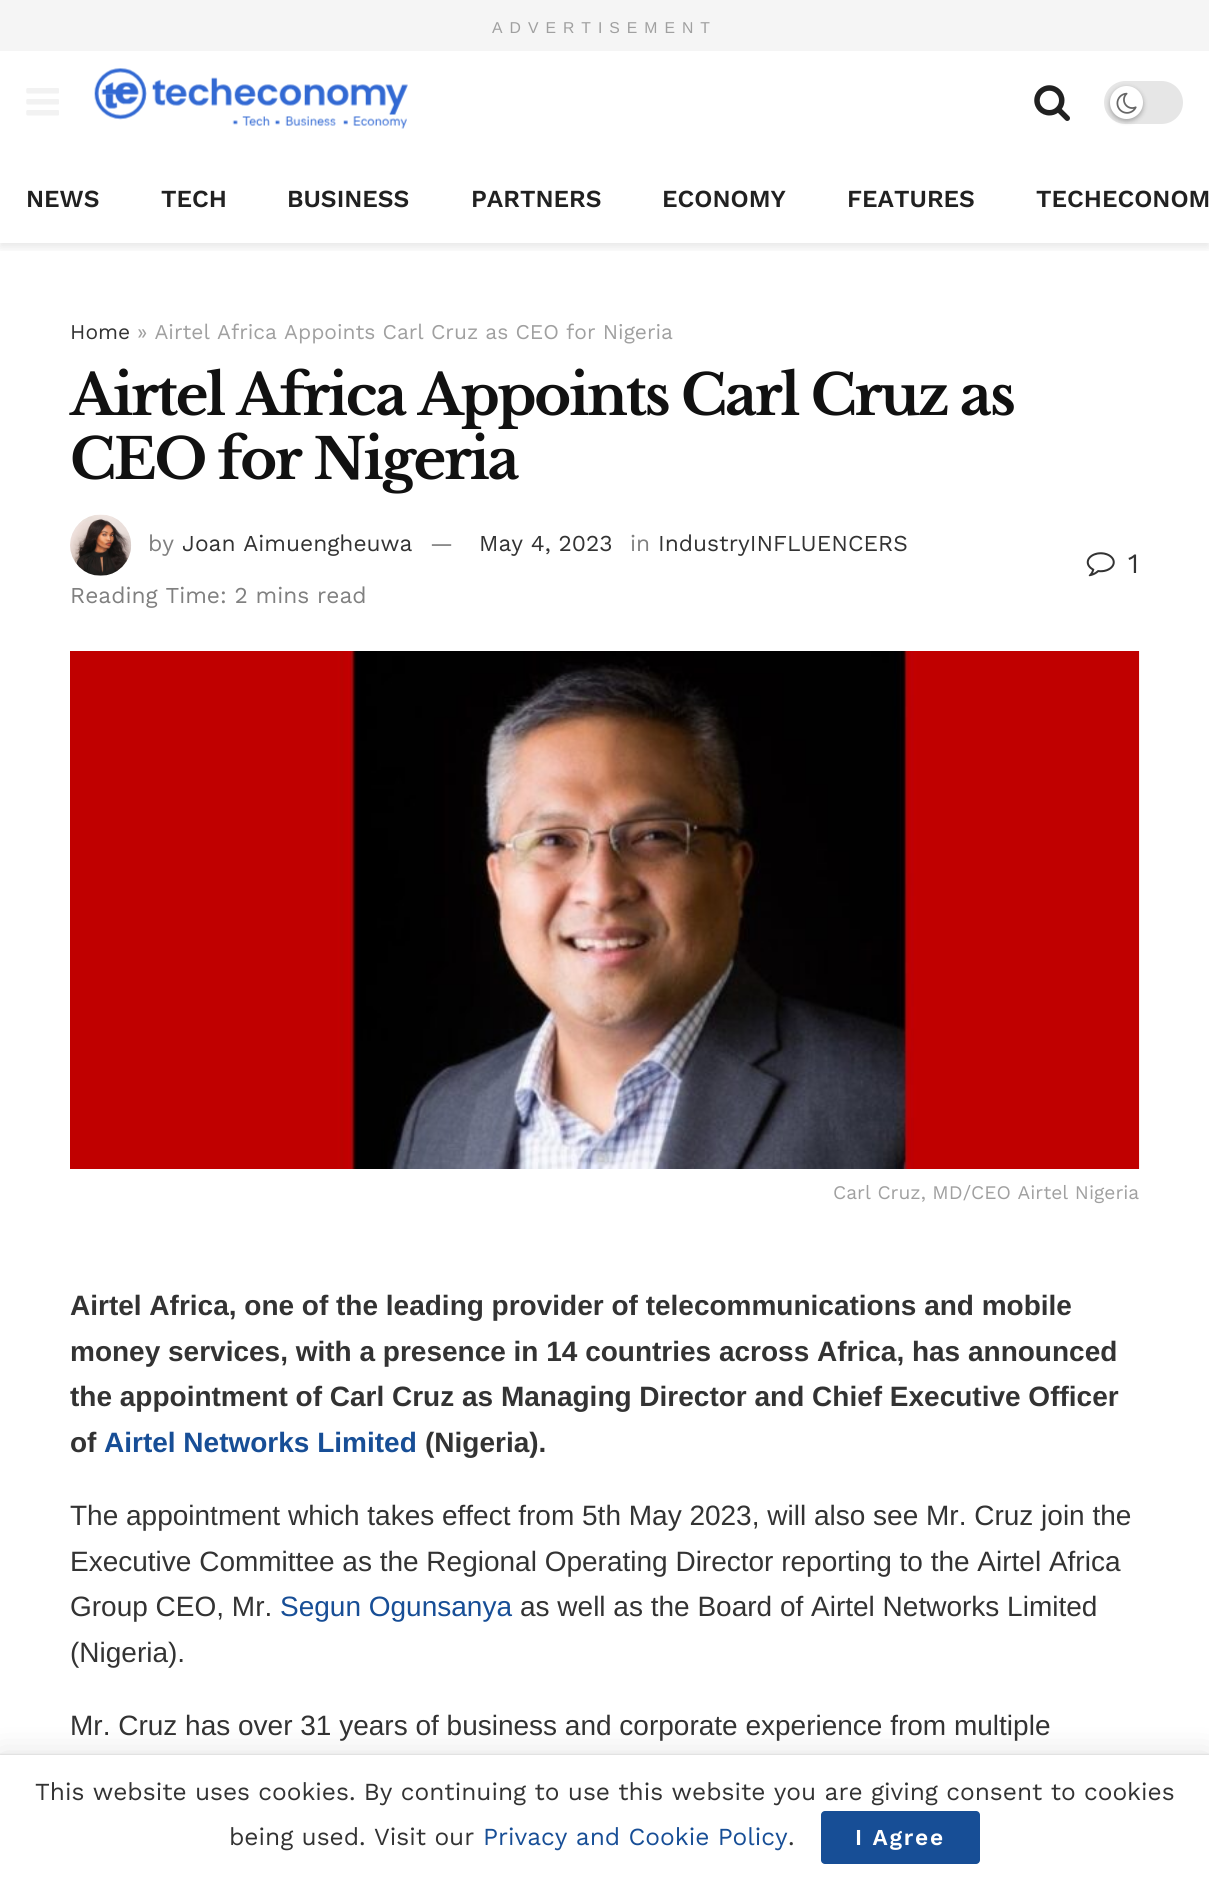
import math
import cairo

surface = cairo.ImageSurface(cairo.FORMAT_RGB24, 1209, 1881)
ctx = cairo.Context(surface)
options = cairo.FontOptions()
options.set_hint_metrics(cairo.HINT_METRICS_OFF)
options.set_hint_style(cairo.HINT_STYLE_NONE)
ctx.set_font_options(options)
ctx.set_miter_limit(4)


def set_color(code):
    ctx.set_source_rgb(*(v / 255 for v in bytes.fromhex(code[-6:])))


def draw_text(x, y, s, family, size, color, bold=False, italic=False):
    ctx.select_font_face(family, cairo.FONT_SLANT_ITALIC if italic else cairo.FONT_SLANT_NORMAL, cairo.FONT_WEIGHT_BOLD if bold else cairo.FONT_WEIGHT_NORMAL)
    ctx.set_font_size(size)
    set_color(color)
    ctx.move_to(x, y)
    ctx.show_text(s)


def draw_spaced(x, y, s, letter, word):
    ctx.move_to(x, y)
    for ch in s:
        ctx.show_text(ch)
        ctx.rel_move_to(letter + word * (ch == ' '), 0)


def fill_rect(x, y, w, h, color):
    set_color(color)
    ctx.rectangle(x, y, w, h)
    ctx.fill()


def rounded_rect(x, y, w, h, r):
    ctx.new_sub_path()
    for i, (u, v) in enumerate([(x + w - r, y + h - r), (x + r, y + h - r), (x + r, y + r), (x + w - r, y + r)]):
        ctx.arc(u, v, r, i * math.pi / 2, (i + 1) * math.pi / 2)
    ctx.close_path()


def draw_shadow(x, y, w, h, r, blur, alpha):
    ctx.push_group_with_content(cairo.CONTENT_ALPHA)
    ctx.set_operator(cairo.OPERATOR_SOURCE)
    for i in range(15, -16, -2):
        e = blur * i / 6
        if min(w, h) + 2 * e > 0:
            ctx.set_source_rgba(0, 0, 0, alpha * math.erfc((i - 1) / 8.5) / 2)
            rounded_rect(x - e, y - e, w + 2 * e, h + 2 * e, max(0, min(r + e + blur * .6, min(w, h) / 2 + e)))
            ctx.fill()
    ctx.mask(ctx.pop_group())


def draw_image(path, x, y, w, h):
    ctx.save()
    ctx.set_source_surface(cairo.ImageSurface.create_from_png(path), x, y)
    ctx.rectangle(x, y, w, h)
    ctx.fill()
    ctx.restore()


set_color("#ffffff")
ctx.paint()
fill_rect(0, 0, 1209, 51, "#f5f5f5")
ctx.select_font_face("Liberation Sans")
ctx.set_font_size(15.75)
set_color("#a0a0a0")
draw_spaced(492, 33, "ADVERTISEMENT", 7, 0)
ctx.save()
ctx.rectangle(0, 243, 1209, 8)
ctx.clip()
set_color("#000000")
draw_shadow(0, 54, 1209, 193, 0, 5, 0.1)
ctx.restore()
draw_image("assets/img1.png", 26, 88, 33, 28)
draw_image("assets/img2.png", 94, 68, 314, 61)
draw_image("assets/img3.png", 1034, 85, 36, 36)
set_color("#e6e6e6")
rounded_rect(1104, 81, 79, 43, 21.5)
ctx.fill()
set_color("#000000")
draw_shadow(1110, 88, 33, 33, 16.5, 2.5, 0.3)
set_color("#ffffff")
ctx.arc(1126.5, 102.5, 16.5, 0, 2 * math.pi)
ctx.fill()
draw_image("assets/img4.png", 1116, 92, 21, 22)
draw_text(26, 207, "NEWS", "Work Sans SemiBold", 24.5, "#212121")
draw_text(161, 207, "TECH", "Work Sans SemiBold", 24.5, "#212121")
draw_text(287, 207, "BUSINESS", "Work Sans SemiBold", 24.5, "#212121")
draw_text(471, 207, "PARTNERS", "Work Sans SemiBold", 24.5, "#212121")
draw_text(662, 207, "ECONOMY", "Work Sans SemiBold", 24.5, "#212121")
draw_text(847, 207, "FEATURES", "Work Sans SemiBold", 24.5, "#212121")
draw_text(1036, 207, "TECHECONOM", "Work Sans SemiBold", 24.5, "#212121")
draw_text(70, 339, "Home", "Work Sans", 21, "#333333")
draw_text(137, 339, "» Airtel Africa Appoints Carl Cruz as CEO for Nigeria", "Work Sans", 21, "#a0a0a0")
ctx.select_font_face("Libre Baskerville", cairo.FONT_SLANT_NORMAL, cairo.FONT_WEIGHT_BOLD)
ctx.set_font_size(56)
set_color("#111111")
draw_spaced(70, 415, "Airtel Africa Appoints Carl Cruz as", -2.25, 0)
draw_spaced(70, 479, "CEO for Nigeria", -2.25, 0)
draw_image("assets/img5.png", 70, 514, 62, 62)
draw_text(148, 551, "by", "Work Sans", 22.75, "#808080")
draw_text(182, 551, "Joan Aimuengheuwa", "Work Sans", 22.75, "#333333")
draw_text(430, 551, "—", "Work Sans", 22.75, "#808080")
draw_text(479, 551, "May 4, 2023", "Work Sans", 22.75, "#333333")
draw_text(630, 551, "in", "Work Sans", 22.75, "#808080")
draw_text(658, 551, "IndustryINFLUENCERS", "Work Sans", 22.75, "#333333")
draw_text(70, 603, "Reading Time: 2 mins read", "Work Sans", 22.75, "#808080")
draw_image("assets/img6.png", 1086, 552, 29, 25)
draw_text(1128, 573, "1", "Work Sans", 28, "#333333")
draw_image("assets/img7.png", 70, 651, 1070, 518)
draw_text(833, 1199, "Carl Cruz, MD/CEO Airtel Nigeria", "Work Sans", 19.25, "#a0a0a0")
draw_text(70, 1315, "Airtel Africa, one of the leading provider of telecommunications and mobile", "Liberation Sans", 28, "#333333", bold=True)
draw_text(70, 1361, "money services, with a presence in 14 countries across Africa, has announced", "Liberation Sans", 28, "#333333", bold=True)
draw_text(70, 1406, "the appointment of Carl Cruz as Managing Director and Chief Executive Officer", "Liberation Sans", 28, "#333333", bold=True)
draw_text(70, 1452, "of", "Liberation Sans", 28, "#333333", bold=True)
draw_text(104, 1452, "Airtel Networks Limited", "Liberation Sans", 28, "#174e96", bold=True)
draw_text(425, 1452, "(Nigeria).", "Liberation Sans", 28, "#333333", bold=True)
draw_text(70, 1525, "The appointment which takes effect from 5th May 2023, will also see Mr. Cruz join the", "Liberation Sans", 28, "#333333")
draw_text(70, 1571, "Executive Committee as the Regional Operating Director reporting to the Airtel Africa", "Liberation Sans", 28, "#333333")
draw_text(70, 1616, "Group CEO, Mr.", "Liberation Sans", 28, "#333333")
draw_text(280, 1616, "Segun Ogunsanya", "Liberation Sans", 28, "#174e96")
draw_text(520, 1616, "as well as the Board of Airtel Networks Limited", "Liberation Sans", 28, "#333333")
draw_text(70, 1662, "(Nigeria).", "Liberation Sans", 28, "#333333")
draw_text(70, 1735, "Mr. Cruz has over 31 years of business and corporate experience from multiple", "Liberation Sans", 28, "#333333")
set_color("#000000")
draw_shadow(0, 1759, 1209, 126, 0, 17.5, 0.15)
draw_shadow(0, 1755, 1209, 126, 0, 1, 0.2)
fill_rect(0, 1755, 1209, 126, "#ffffff")
draw_text(35, 1800, "This website uses cookies. By continuing to use this website you are giving consent to cookies", "Work Sans", 24.5, "#333333")
draw_text(229, 1845, "being used. Visit our", "Work Sans", 24.5, "#333333")
draw_text(483, 1845, "Privacy and Cookie Policy", "Work Sans", 24.5, "#174e96")
draw_text(788, 1845, ".", "Work Sans", 24.5, "#333333")
set_color("#174e96")
rounded_rect(821, 1811, 159, 53, 4)
ctx.fill()
ctx.select_font_face("Work Sans SemiBold")
ctx.set_font_size(22.75)
set_color("#ffffff")
draw_spaced(855, 1845, "I Agree", 1.75, 0)
surface.write_to_png("output.png")
